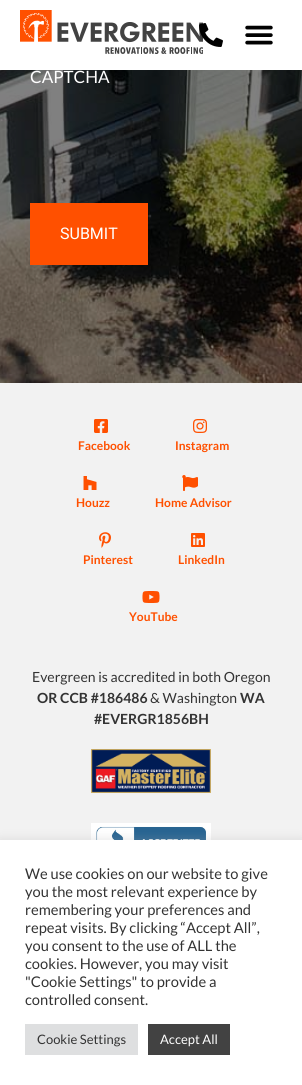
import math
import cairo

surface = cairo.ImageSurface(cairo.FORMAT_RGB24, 302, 1085)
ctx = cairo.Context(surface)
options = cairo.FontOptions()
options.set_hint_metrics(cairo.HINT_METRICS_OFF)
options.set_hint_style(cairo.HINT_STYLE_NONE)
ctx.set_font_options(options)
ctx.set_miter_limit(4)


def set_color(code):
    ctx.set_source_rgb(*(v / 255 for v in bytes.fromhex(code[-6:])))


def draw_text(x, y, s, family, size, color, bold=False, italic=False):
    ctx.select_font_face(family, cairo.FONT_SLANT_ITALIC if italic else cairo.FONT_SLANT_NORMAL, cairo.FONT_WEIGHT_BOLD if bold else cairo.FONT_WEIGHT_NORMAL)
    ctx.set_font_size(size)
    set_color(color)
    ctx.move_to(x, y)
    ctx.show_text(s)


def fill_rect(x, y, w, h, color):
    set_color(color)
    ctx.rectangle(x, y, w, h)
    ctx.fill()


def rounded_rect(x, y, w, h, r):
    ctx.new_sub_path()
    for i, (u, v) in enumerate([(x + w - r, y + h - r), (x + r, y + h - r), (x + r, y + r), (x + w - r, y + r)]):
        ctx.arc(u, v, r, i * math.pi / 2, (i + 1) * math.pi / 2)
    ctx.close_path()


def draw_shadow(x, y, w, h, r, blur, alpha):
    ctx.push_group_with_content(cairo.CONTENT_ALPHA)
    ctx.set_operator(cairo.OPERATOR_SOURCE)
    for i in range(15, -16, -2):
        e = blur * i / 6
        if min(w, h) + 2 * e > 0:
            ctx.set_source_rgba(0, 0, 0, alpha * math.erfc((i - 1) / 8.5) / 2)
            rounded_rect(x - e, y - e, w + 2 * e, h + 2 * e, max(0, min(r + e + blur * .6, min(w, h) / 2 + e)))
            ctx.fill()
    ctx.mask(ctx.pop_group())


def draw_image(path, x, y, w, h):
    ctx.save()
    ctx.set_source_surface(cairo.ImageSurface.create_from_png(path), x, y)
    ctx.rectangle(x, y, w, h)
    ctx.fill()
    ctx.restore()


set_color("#ffffff")
ctx.paint()
draw_image("assets/img1.png", 20, 10, 183, 44)
draw_image("assets/img2.png", 199, 23, 24, 24)
draw_image("assets/img3.png", 245, 25, 28, 20)
draw_image("assets/img4.png", 0, 70, 302, 313)
draw_text(30, 83, "CAPTCHA", "Lato", 17, "#ffffff")
fill_rect(30, 203, 118, 62, "#ff5000")
draw_text(60, 239, "SUBMIT", "Heebo", 16, "#ffffff")
fill_rect(0, 383, 302, 457, "#f2f2f2")
draw_image("assets/img5.png", 94, 419, 14, 14)
draw_text(78, 450, "Facebook", "Lato", 12, "#ff5000", bold=True)
draw_image("assets/img6.png", 193, 419, 14, 14)
draw_text(175, 450, "Instagram", "Lato", 12, "#ff5000", bold=True)
draw_image("assets/img7.png", 83, 476, 14, 14)
draw_text(76, 507, "Houzz", "Lato", 12, "#ff5000", bold=True)
draw_image("assets/img8.png", 182, 475, 16, 16)
draw_text(155, 507, "Home Advisor", "Lato", 12, "#ff5000", bold=True)
draw_image("assets/img9.png", 99, 532, 12, 16)
draw_text(83, 564, "Pinterest", "Lato", 12, "#ff5000", bold=True)
draw_image("assets/img10.png", 191, 533, 14, 14)
draw_text(178, 564, "LinkedIn", "Lato", 12, "#ff5000", bold=True)
draw_image("assets/img11.png", 142, 591, 18, 12)
draw_text(129, 621, "YouTube", "Lato", 12, "#ff5000", bold=True)
draw_text(32, 682, "Evergreen is accredited in both Oregon", "Lato", 14, "#333333")
draw_text(37, 703, "OR CCB #186486", "Lato", 14, "#333333", bold=True)
draw_text(150, 703, "& Washington", "Lato", 14, "#333333")
draw_text(240, 703, "WA", "Lato", 14, "#333333", bold=True)
draw_text(94, 724, "#EVERGR1856BH", "Lato", 14, "#333333", bold=True)
draw_image("assets/img12.png", 91, 749, 120, 44)
draw_image("assets/img13.png", 91, 823, 120, 17)
set_color("#acabab")
draw_shadow(0, 839, 302, 245, 0, 5, 0.3)
fill_rect(0, 840, 302, 245, "#ffffff")
draw_text(25, 879, "We use cookies on our website to give", "Lato", 14.7, "#333333")
draw_text(25, 897, "you the most relevant experience by", "Lato", 14.7, "#333333")
draw_text(25, 915, "remembering your preferences and", "Lato", 14.7, "#333333")
draw_text(25, 933, "repeat visits. By clicking “Accept All”,", "Lato", 14.7, "#333333")
draw_text(25, 951, "you consent to the use of ALL the", "Lato", 14.7, "#333333")
draw_text(25, 969, "cookies. However, you may visit", "Lato", 14.7, "#333333")
draw_text(25, 987, "\"Cookie Settings\" to provide a", "Lato", 14.7, "#333333")
draw_text(25, 1005, "controlled consent.", "Lato", 14.7, "#333333")
fill_rect(25, 1024, 113, 31, "#dedfe0")
draw_text(37, 1044, "Cookie Settings", "Lato", 13, "#333333")
fill_rect(148, 1024, 82, 31, "#424242")
draw_text(160, 1044, "Accept All", "Lato", 13, "#ffffff")
surface.write_to_png("output.png")
